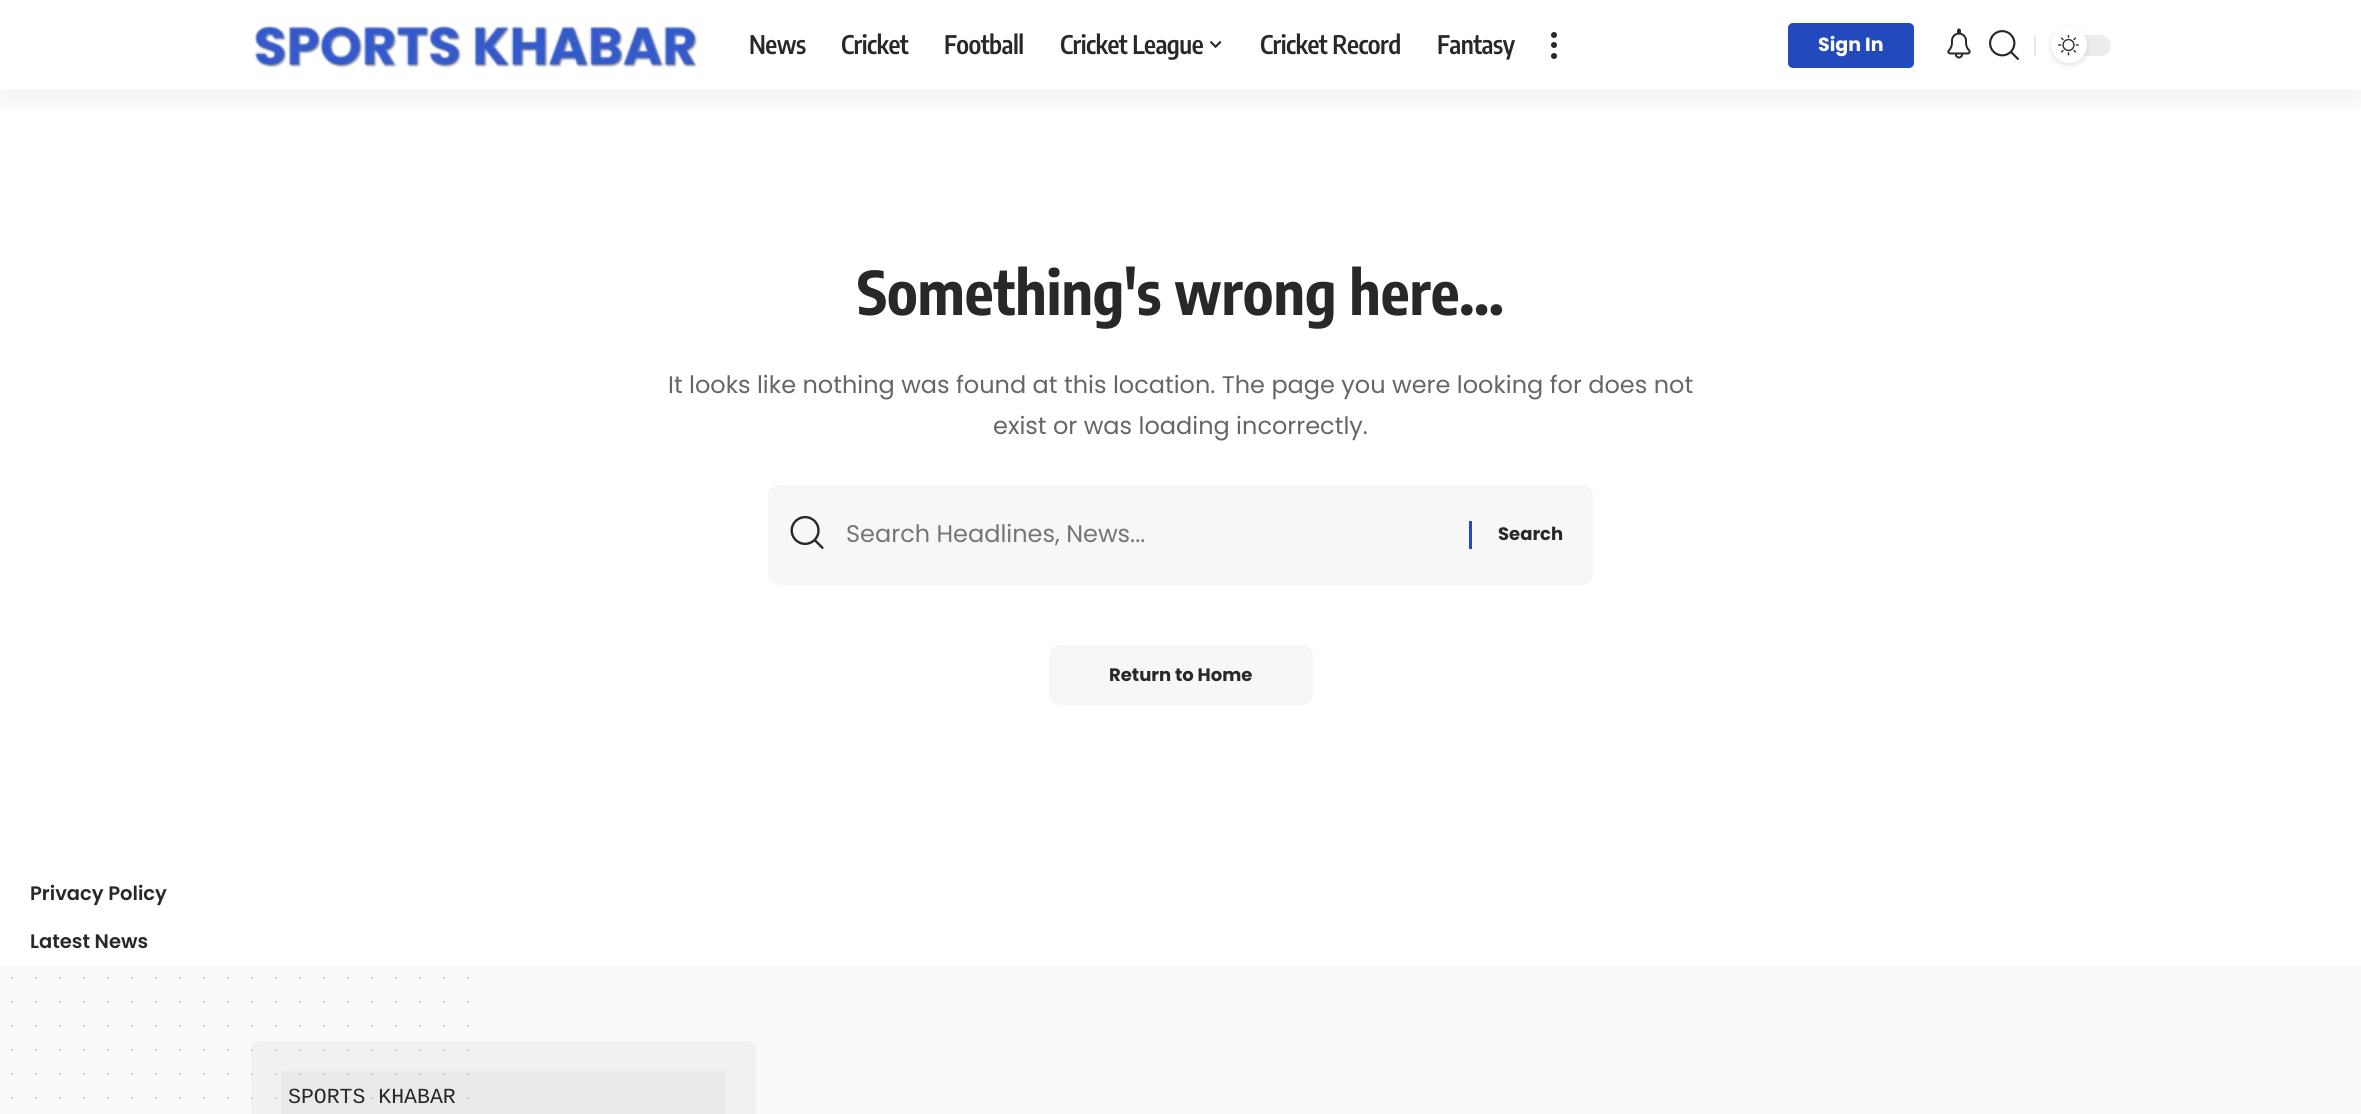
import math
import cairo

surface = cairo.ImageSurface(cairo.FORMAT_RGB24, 2361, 1114)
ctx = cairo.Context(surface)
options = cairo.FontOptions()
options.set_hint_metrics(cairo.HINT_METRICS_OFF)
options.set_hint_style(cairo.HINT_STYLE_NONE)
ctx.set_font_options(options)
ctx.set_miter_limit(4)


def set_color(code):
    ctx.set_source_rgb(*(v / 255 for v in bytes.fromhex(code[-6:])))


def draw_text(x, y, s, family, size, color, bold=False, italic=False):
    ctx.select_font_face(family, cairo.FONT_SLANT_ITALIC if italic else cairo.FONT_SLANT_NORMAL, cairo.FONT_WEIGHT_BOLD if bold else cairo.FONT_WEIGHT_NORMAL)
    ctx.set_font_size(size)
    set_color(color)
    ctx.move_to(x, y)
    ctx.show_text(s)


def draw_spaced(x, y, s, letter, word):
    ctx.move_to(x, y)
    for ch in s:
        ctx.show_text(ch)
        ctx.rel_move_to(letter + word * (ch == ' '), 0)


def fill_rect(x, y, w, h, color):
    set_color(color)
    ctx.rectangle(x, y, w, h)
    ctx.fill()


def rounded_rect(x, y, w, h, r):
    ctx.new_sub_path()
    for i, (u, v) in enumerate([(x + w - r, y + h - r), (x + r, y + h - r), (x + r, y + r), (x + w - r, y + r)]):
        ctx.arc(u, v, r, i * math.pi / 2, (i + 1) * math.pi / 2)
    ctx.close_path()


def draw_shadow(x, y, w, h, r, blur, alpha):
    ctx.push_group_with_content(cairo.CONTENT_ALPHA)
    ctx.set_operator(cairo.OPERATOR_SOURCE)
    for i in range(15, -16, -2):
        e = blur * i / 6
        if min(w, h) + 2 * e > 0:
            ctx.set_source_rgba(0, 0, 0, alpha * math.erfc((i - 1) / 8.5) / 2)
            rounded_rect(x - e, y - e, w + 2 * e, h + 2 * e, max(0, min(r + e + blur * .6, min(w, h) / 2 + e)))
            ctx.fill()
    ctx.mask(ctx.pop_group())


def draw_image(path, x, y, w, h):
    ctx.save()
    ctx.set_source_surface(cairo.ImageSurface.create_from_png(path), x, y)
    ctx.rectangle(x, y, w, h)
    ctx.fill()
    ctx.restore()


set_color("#ffffff")
ctx.paint()
ctx.save()
ctx.rectangle(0, 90, 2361, 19)
ctx.clip()
set_color("#000000")
draw_shadow(0, 6, 2361, 90, 0, 22.5, 0.07)
ctx.restore()
draw_image("assets/img1.png", 254, 25, 444, 43)
ctx.select_font_face("Encode Sans Condensed SemiBold")
ctx.set_font_size(25.5)
set_color("#282828")
draw_spaced(749, 54, "News", -0.5, 0)
draw_spaced(841, 54, "Cricket", -0.5, 0)
draw_spaced(944, 54, "Football", -0.5, 0)
draw_spaced(1060, 54, "Cricket League", -0.5, 0)
draw_image("assets/img2.png", 1209, 40, 13, 9)
draw_spaced(1260, 54, "Cricket Record", -0.5, 0)
draw_spaced(1437, 54, "Fantasy", -0.5, 0)
ctx.new_path()
ctx.arc(1554, 35, 3, 0, 2 * math.pi)
ctx.fill()
ctx.arc(1554, 45, 3, 0, 2 * math.pi)
ctx.fill()
ctx.arc(1554, 56, 3, 0, 2 * math.pi)
ctx.fill()
set_color("#234abc")
rounded_rect(1788, 23, 126, 45, 5)
ctx.fill()
draw_text(1818, 51, "Sign In", "Poppins", 19, "#ffffff", bold=True)
draw_image("assets/img3.png", 1947, 28, 24, 31)
draw_image("assets/img4.png", 1989, 30, 30, 30)
fill_rect(2034, 35, 2, 21, "#eaeaea")
set_color("#ededed")
rounded_rect(2051, 35, 60, 21, 10.5)
ctx.fill()
set_color("#000000")
draw_shadow(2051, 29, 36, 36, 18, 3, 0.12)
set_color("#ffffff")
ctx.arc(2069, 45, 18, 0, 2 * math.pi)
ctx.fill()
draw_image("assets/img5.png", 2058, 35, 21, 21)
draw_text(857, 315, "Something's wrong here...", "Encode Sans Condensed", 60, "#282828", bold=True)
draw_text(668, 393, "It looks like nothing was found at this location. The page you were looking for does not", "Poppins", 24, "#666666")
draw_text(993, 434, "exist or was loading incorrectly.", "Poppins", 24, "#666666")
set_color("#f7f7f7")
rounded_rect(768, 485, 825, 100, 11)
ctx.fill()
draw_image("assets/img6.png", 790, 515, 34, 34)
draw_text(846, 542, "Search Headlines, News...", "Poppins", 24, "#757575")
fill_rect(1469, 521, 3, 28, "#234abc")
draw_text(1498, 540, "Search", "Poppins", 18, "#282828", bold=True)
set_color("#f7f7f7")
rounded_rect(1049, 645, 264, 60, 11)
ctx.fill()
draw_text(1109, 681, "Return to Home", "Poppins", 18, "#282828", bold=True)
draw_text(30, 900, "Privacy Policy", "Poppins SemiBold", 19.5, "#282828")
draw_text(30, 948, "Latest News", "Poppins SemiBold", 19.5, "#282828")
fill_rect(0, 966, 2361, 148, "#f9f9f9")
ctx.new_path()
ctx.move_to(12, 978)
ctx.line_to(468.3, 978)
set_color("#cfcfcf")
ctx.set_line_width(2.2)
ctx.set_line_cap(cairo.LINE_CAP_ROUND)
ctx.set_dash([0, 24])
ctx.stroke()
ctx.new_path()
ctx.move_to(12, 1002)
ctx.line_to(468.3, 1002)
ctx.stroke()
ctx.new_path()
ctx.move_to(12, 1026)
ctx.line_to(468.3, 1026)
ctx.stroke()
ctx.new_path()
ctx.move_to(12, 1050)
ctx.line_to(468.3, 1050)
ctx.stroke()
ctx.new_path()
ctx.move_to(12, 1074)
ctx.line_to(468.3, 1074)
ctx.stroke()
ctx.new_path()
ctx.move_to(12, 1098)
ctx.line_to(468.3, 1098)
ctx.stroke()
ctx.set_source_rgba(0.533, 0.533, 0.533, 0.07)
rounded_rect(251, 1041, 505, 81, 8)
ctx.fill()
ctx.rectangle(281, 1071, 445, 43)
ctx.fill()
draw_text(288, 1103, "SPORTS KHABAR", "Liberation Mono", 21.5, "#282828")
surface.write_to_png("output.png")
